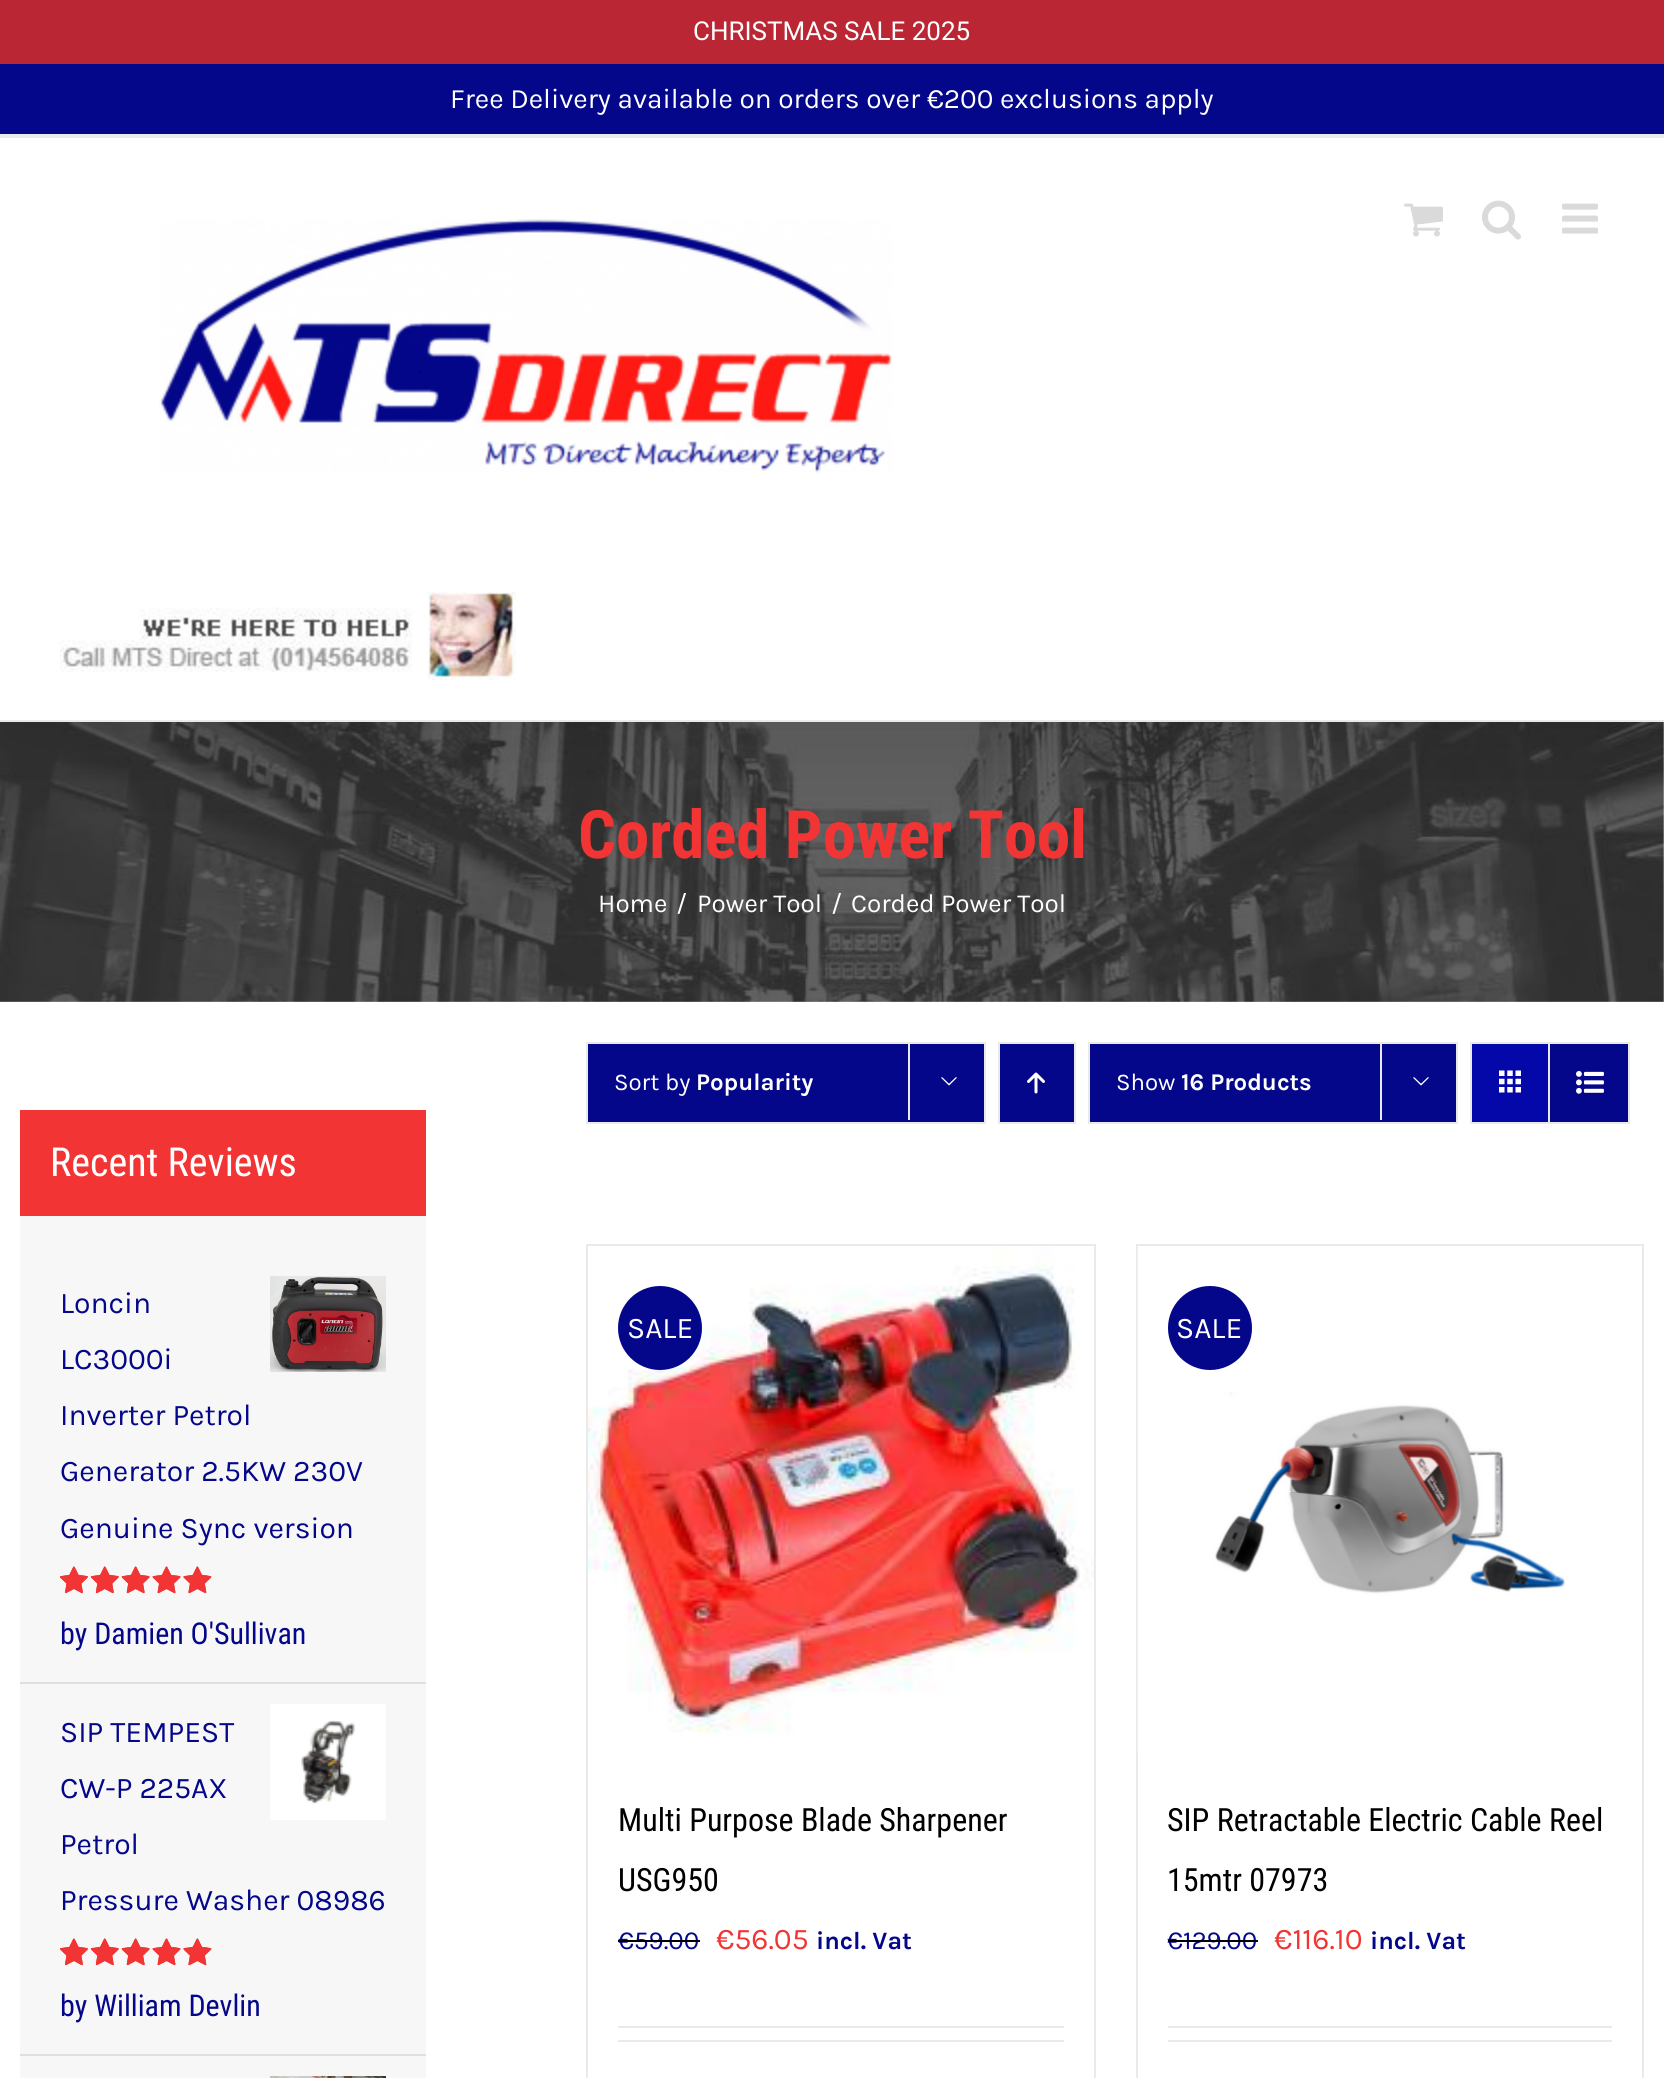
import math
import cairo

surface = cairo.ImageSurface(cairo.FORMAT_RGB24, 1664, 2078)
ctx = cairo.Context(surface)
options = cairo.FontOptions()
options.set_hint_metrics(cairo.HINT_METRICS_OFF)
options.set_hint_style(cairo.HINT_STYLE_NONE)
ctx.set_font_options(options)
ctx.set_miter_limit(4)


def set_color(code):
    ctx.set_source_rgb(*(v / 255 for v in bytes.fromhex(code[-6:])))


def draw_text(x, y, s, family, size, color, bold=False, italic=False):
    ctx.select_font_face(family, cairo.FONT_SLANT_ITALIC if italic else cairo.FONT_SLANT_NORMAL, cairo.FONT_WEIGHT_BOLD if bold else cairo.FONT_WEIGHT_NORMAL)
    ctx.set_font_size(size)
    set_color(color)
    ctx.move_to(x, y)
    ctx.show_text(s)


def fill_rect(x, y, w, h, color):
    set_color(color)
    ctx.rectangle(x, y, w, h)
    ctx.fill()


def rounded_rect(x, y, w, h, r):
    ctx.new_sub_path()
    for i, (u, v) in enumerate([(x + w - r, y + h - r), (x + r, y + h - r), (x + r, y + r), (x + w - r, y + r)]):
        ctx.arc(u, v, r, i * math.pi / 2, (i + 1) * math.pi / 2)
    ctx.close_path()


def draw_shadow(x, y, w, h, r, blur, alpha):
    ctx.push_group_with_content(cairo.CONTENT_ALPHA)
    ctx.set_operator(cairo.OPERATOR_SOURCE)
    for i in range(15, -16, -2):
        e = blur * i / 6
        if min(w, h) + 2 * e > 0:
            ctx.set_source_rgba(0, 0, 0, alpha * math.erfc((i - 1) / 8.5) / 2)
            rounded_rect(x - e, y - e, w + 2 * e, h + 2 * e, max(0, min(r + e + blur * .6, min(w, h) / 2 + e)))
            ctx.fill()
    ctx.mask(ctx.pop_group())


def draw_image(path, x, y, w, h):
    ctx.save()
    ctx.set_source_surface(cairo.ImageSurface.create_from_png(path), x, y)
    ctx.rectangle(x, y, w, h)
    ctx.fill()
    ctx.restore()


set_color("#eaeaea")
ctx.paint()
fill_rect(0, 1002, 1664, 1076, "#ffffff")
draw_image("assets/img17.png", 0, 722, 1664, 280)
set_color("#000000")
draw_shadow(4, 88, 1656, 650, 0, 50, 0.14)
fill_rect(0, 0, 1664, 64, "#ba2633")
draw_text(693, 40, "CHRISTMAS SALE 2025", "Roboto", 26, "#ffffff")
fill_rect(20, 1216, 406, 862, "#f7f7f7")
fill_rect(20, 1110, 406, 106, "#f23534")
draw_text(50, 1176, "Recent Reviews", "Roboto Condensed", 40, "#ffffff")
fill_rect(20, 1682, 406, 2, "#e0dede")
draw_text(60, 1313, "Loncin", "Karla", 30, "#040789")
draw_image("assets/img1.png", 270, 1276, 116, 96)
draw_text(60, 1369, "LC3000i", "Karla", 30, "#040789")
draw_text(60, 1425, "Inverter Petrol", "Karla", 30, "#040789")
draw_text(60, 1481, "Generator 2.5KW 230V", "Karla", 30, "#040789")
draw_text(60, 1538, "Genuine Sync version", "Karla", 30, "#040789")
draw_image("assets/img2.png", 60, 1566, 152, 28)
draw_image("assets/img3.png", 60, 1566, 152, 28)
draw_text(60, 1644, "by Damien O'Sullivan", "Roboto Condensed", 30, "#040789")
fill_rect(20, 2054, 406, 2, "#e0dede")
draw_text(60, 1742, "SIP TEMPEST", "Karla", 30, "#040789")
draw_image("assets/img4.png", 270, 1704, 116, 116)
draw_text(60, 1798, "CW-P 225AX", "Karla", 30, "#040789")
draw_text(60, 1854, "Petrol", "Karla", 30, "#040789")
draw_text(60, 1910, "Pressure Washer 08986", "Karla", 30, "#040789")
draw_image("assets/img2.png", 60, 1938, 152, 28)
draw_image("assets/img3.png", 60, 1938, 152, 28)
draw_text(60, 2016, "by William Devlin", "Roboto Condensed", 30, "#040789")
draw_image("assets/img5.png", 270, 2076, 116, 2)
ctx.rectangle(587, 1043, 398, 80)
ctx.fill_preserve()
set_color("#eaeaea")
ctx.stroke()
draw_text(614, 1090, "Sort by", "Karla", 24, "#ffffff")
draw_text(696, 1090, "Popularity", "Karla", 24, "#ffffff", bold=True)
fill_rect(908, 1042, 2, 78, "#eaeaea")
draw_image("assets/img6.png", 941, 1077, 16, 9)
set_color("#040789")
ctx.rectangle(999, 1043, 76, 80)
ctx.fill_preserve()
set_color("#eaeaea")
ctx.stroke()
draw_image("assets/img7.png", 1027, 1072, 18, 22)
set_color("#040789")
ctx.rectangle(1089, 1043, 368, 80)
ctx.fill_preserve()
set_color("#eaeaea")
ctx.stroke()
draw_text(1116, 1090, "Show", "Karla", 24, "#ffffff")
draw_text(1181, 1090, "16 Products", "Karla", 24, "#ffffff", bold=True)
fill_rect(1380, 1042, 2, 78, "#eaeaea")
draw_image("assets/img6.png", 1413, 1077, 16, 9)
ctx.rectangle(1471, 1043, 158, 80)
ctx.stroke()
fill_rect(1472, 1044, 76, 78, "#0508a8")
fill_rect(1548, 1044, 2, 78, "#eaeaea")
draw_image("assets/img8.png", 1499, 1070, 22, 23)
fill_rect(1550, 1044, 78, 78, "#040789")
draw_image("assets/img9.png", 1576, 1071, 28, 23)
fill_rect(586, 1244, 510, 2, "#eaeaea")
fill_rect(1094, 1244, 2, 834, "#eaeaea")
fill_rect(586, 1244, 2, 834, "#eaeaea")
draw_image("assets/img10.png", 588, 1246, 506, 506)
set_color("#040789")
ctx.arc(660, 1328, 42, 0, 2 * math.pi)
ctx.fill()
draw_text(627, 1338, "SALE", "Karla", 30, "#ffffff")
draw_text(618, 1831, "Multi Purpose Blade Sharpener", "Roboto Condensed", 32, "#000000")
draw_text(618, 1891, "USG950", "Roboto Condensed", 32, "#000000")
draw_text(618, 1949, "€59.00", "Karla", 26, "#040789")
fill_rect(618, 1940, 82, 2, "#000000")
draw_text(716, 1949, "€56.05", "Karla", 30, "#f23534")
draw_text(816, 1949, "incl. Vat", "Karla", 25, "#040789", bold=True)
fill_rect(618, 2026, 446, 2, "#eaeaea")
fill_rect(618, 2040, 446, 2, "#eaeaea")
fill_rect(1136, 1244, 508, 2, "#eaeaea")
fill_rect(1642, 1244, 2, 834, "#eaeaea")
fill_rect(1136, 1244, 2, 834, "#eaeaea")
draw_image("assets/img11.png", 1137, 1246, 428, 506)
set_color("#040789")
ctx.arc(1210, 1328, 42, 0, 2 * math.pi)
ctx.fill()
draw_text(1176, 1338, "SALE", "Karla", 30, "#ffffff")
draw_text(1167, 1831, "SIP Retractable Electric Cable Reel", "Roboto Condensed", 32, "#000000")
draw_text(1167, 1891, "15mtr 07973", "Roboto Condensed", 32, "#000000")
draw_text(1167, 1949, "€129.00", "Karla", 26, "#040789")
fill_rect(1168, 1940, 90, 2, "#000000")
draw_text(1274, 1949, "€116.10", "Karla", 30, "#f23534")
draw_text(1370, 1949, "incl. Vat", "Karla", 25, "#040789", bold=True)
fill_rect(1168, 2026, 444, 2, "#eaeaea")
fill_rect(1168, 2040, 444, 2, "#eaeaea")
fill_rect(0, 64, 1664, 70, "#040789")
fill_rect(0, 134, 1664, 4, "#eaeaea")
draw_text(450, 108, "Free Delivery available on orders over €200 exclusions apply", "Karla", 28, "#ffffff")
fill_rect(0, 138, 1664, 582, "#ffffff")
fill_rect(0, 720, 1664, 2, "#eaeaea")
draw_image("assets/img12.png", 159, 219, 734, 254)
draw_image("assets/img13.png", 60, 592, 456, 88)
draw_image("assets/img14.png", 1404, 203, 39, 34)
draw_image("assets/img15.png", 1482, 200, 39, 40)
draw_image("assets/img16.png", 1562, 203, 36, 31)
draw_text(578, 858, "Corded Power Tool", "Roboto Condensed", 66.75, "#f23534", bold=True)
draw_text(598, 912, "Home", "Karla", 26, "#ffffff")
draw_text(676, 912, "/", "Karla", 26, "#ffffff")
draw_text(697, 912, "Power Tool", "Karla", 26, "#ffffff")
draw_text(831, 912, "/", "Karla", 26, "#ffffff")
draw_text(851, 912, "Corded Power Tool", "Karla", 26, "#ffffff")
surface.write_to_png("output.png")
